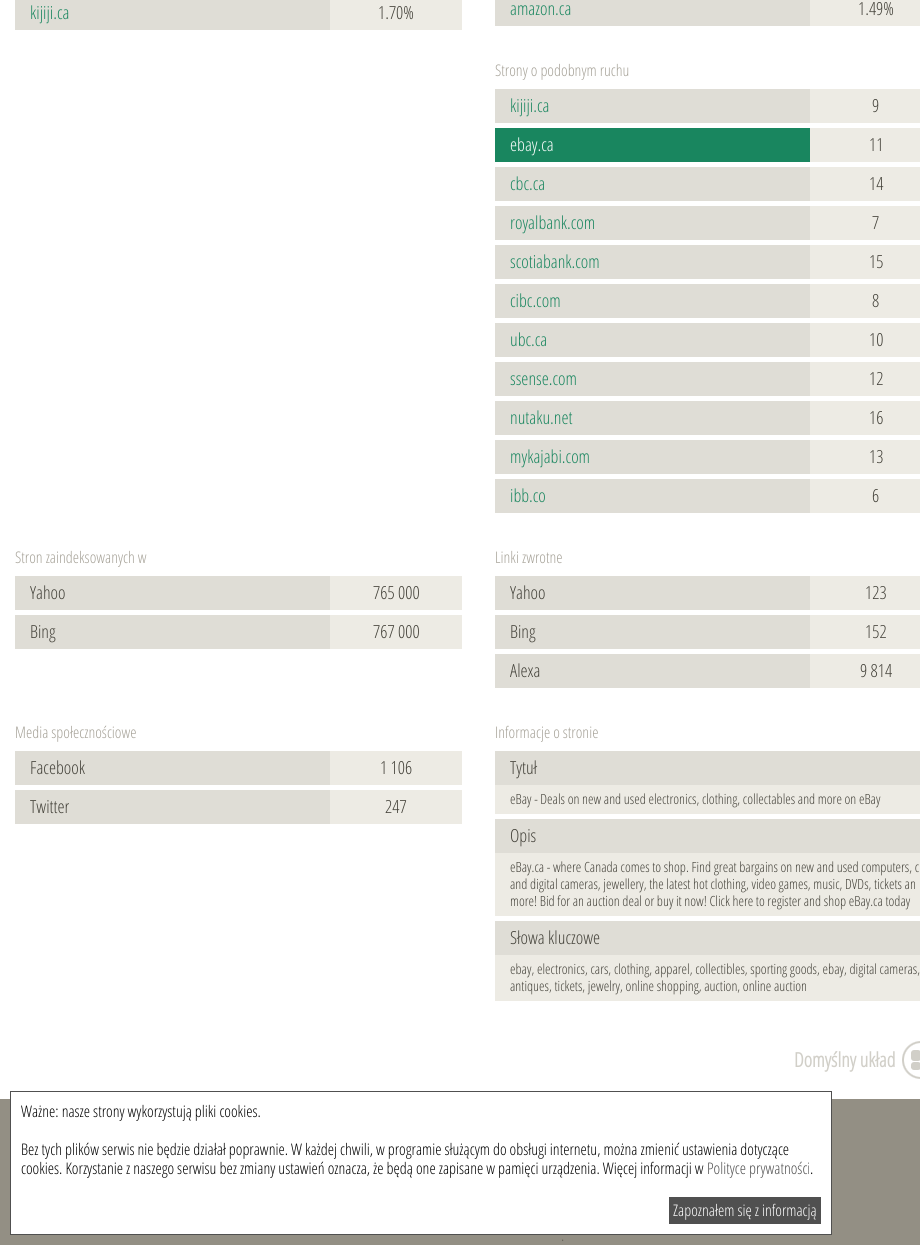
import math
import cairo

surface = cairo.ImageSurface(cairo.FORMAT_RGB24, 920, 1245)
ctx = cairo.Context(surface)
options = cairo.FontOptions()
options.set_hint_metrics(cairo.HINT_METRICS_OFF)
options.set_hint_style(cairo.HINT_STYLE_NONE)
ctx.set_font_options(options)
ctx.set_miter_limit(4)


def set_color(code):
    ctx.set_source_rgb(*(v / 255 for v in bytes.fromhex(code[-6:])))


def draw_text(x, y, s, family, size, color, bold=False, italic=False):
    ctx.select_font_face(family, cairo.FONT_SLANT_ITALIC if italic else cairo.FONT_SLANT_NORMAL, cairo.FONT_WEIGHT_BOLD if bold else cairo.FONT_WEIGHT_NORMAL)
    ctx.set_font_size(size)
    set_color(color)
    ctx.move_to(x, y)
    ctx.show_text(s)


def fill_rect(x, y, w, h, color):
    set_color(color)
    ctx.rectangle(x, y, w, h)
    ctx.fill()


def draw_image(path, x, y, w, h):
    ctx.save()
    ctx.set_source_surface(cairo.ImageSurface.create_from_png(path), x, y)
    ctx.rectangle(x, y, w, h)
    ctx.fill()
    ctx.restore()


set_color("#938f84")
ctx.paint()
fill_rect(0, 0, 920, 1099, "#ffffff")
fill_rect(15, 0, 315, 30, "#dfddd6")
draw_text(30, 19, "kijiji.ca", "Open Sans Light", 18, "#19865f")
fill_rect(330, 0, 132, 30, "#edebe4")
draw_text(378, 19, "1.70%", "Open Sans Light", 18, "#434139")
fill_rect(495, 0, 315, 26, "#dfddd6")
draw_text(510, 15, "amazon.ca", "Open Sans Light", 18, "#19865f")
fill_rect(810, 0, 110, 26, "#edebe4")
draw_text(858, 15, "1.49%", "Open Sans Light", 18, "#434139")
draw_text(495, 76, "Strony o podobnym ruchu", "Open Sans Light", 16, "#a6a298")
fill_rect(495, 89, 315, 34, "#dfddd6")
draw_text(510, 112, "kijiji.ca", "Open Sans Light", 18, "#19865f")
fill_rect(810, 89, 110, 34, "#edebe4")
draw_text(872, 112, "9", "Open Sans Light", 18, "#434139")
fill_rect(495, 128, 315, 34, "#19865f")
draw_text(510, 151, "ebay.ca", "Open Sans Light", 18, "#ffffff")
fill_rect(810, 128, 110, 34, "#edebe4")
draw_text(869, 151, "11", "Open Sans Light", 18, "#434139")
fill_rect(495, 167, 315, 34, "#dfddd6")
draw_text(510, 190, "cbc.ca", "Open Sans Light", 18, "#19865f")
fill_rect(810, 167, 110, 34, "#edebe4")
draw_text(869, 190, "14", "Open Sans Light", 18, "#434139")
fill_rect(495, 206, 315, 34, "#dfddd6")
draw_text(510, 229, "royalbank.com", "Open Sans Light", 18, "#19865f")
fill_rect(810, 206, 110, 34, "#edebe4")
draw_text(872, 229, "7", "Open Sans Light", 18, "#434139")
fill_rect(495, 245, 315, 34, "#dfddd6")
draw_text(510, 268, "scotiabank.com", "Open Sans Light", 18, "#19865f")
fill_rect(810, 245, 110, 34, "#edebe4")
draw_text(869, 268, "15", "Open Sans Light", 18, "#434139")
fill_rect(495, 284, 315, 34, "#dfddd6")
draw_text(510, 307, "cibc.com", "Open Sans Light", 18, "#19865f")
fill_rect(810, 284, 110, 34, "#edebe4")
draw_text(872, 307, "8", "Open Sans Light", 18, "#434139")
fill_rect(495, 323, 315, 34, "#dfddd6")
draw_text(510, 346, "ubc.ca", "Open Sans Light", 18, "#19865f")
fill_rect(810, 323, 110, 34, "#edebe4")
draw_text(869, 346, "10", "Open Sans Light", 18, "#434139")
fill_rect(495, 362, 315, 34, "#dfddd6")
draw_text(510, 385, "ssense.com", "Open Sans Light", 18, "#19865f")
fill_rect(810, 362, 110, 34, "#edebe4")
draw_text(869, 385, "12", "Open Sans Light", 18, "#434139")
fill_rect(495, 401, 315, 34, "#dfddd6")
draw_text(510, 424, "nutaku.net", "Open Sans Light", 18, "#19865f")
fill_rect(810, 401, 110, 34, "#edebe4")
draw_text(869, 424, "16", "Open Sans Light", 18, "#434139")
fill_rect(495, 440, 315, 34, "#dfddd6")
draw_text(510, 463, "mykajabi.com", "Open Sans Light", 18, "#19865f")
fill_rect(810, 440, 110, 34, "#edebe4")
draw_text(869, 463, "13", "Open Sans Light", 18, "#434139")
fill_rect(495, 479, 315, 34, "#dfddd6")
draw_text(510, 502, "ibb.co", "Open Sans Light", 18, "#19865f")
fill_rect(810, 479, 110, 34, "#edebe4")
draw_text(872, 502, "6", "Open Sans Light", 18, "#434139")
draw_text(15, 563, "Stron zaindeksowanych w", "Open Sans Light", 16, "#a6a298")
fill_rect(15, 576, 315, 34, "#dfddd6")
draw_text(30, 599, "Yahoo", "Open Sans Light", 18, "#434139")
fill_rect(330, 576, 132, 34, "#edebe4")
draw_text(373, 599, "765 000", "Open Sans Light", 18, "#434139")
fill_rect(15, 615, 315, 34, "#dfddd6")
draw_text(30, 638, "Bing", "Open Sans Light", 18, "#434139")
fill_rect(330, 615, 132, 34, "#edebe4")
draw_text(373, 638, "767 000", "Open Sans Light", 18, "#434139")
draw_text(495, 563, "Linki zwrotne", "Open Sans Light", 16, "#a6a298")
fill_rect(495, 576, 315, 34, "#dfddd6")
draw_text(510, 599, "Yahoo", "Open Sans Light", 18, "#434139")
fill_rect(810, 576, 110, 34, "#edebe4")
draw_text(865, 599, "123", "Open Sans Light", 18, "#434139")
fill_rect(495, 615, 315, 34, "#dfddd6")
draw_text(510, 638, "Bing", "Open Sans Light", 18, "#434139")
fill_rect(810, 615, 110, 34, "#edebe4")
draw_text(865, 638, "152", "Open Sans Light", 18, "#434139")
fill_rect(495, 654, 315, 34, "#dfddd6")
draw_text(510, 677, "Alexa", "Open Sans Light", 18, "#434139")
fill_rect(810, 654, 110, 34, "#edebe4")
draw_text(860, 677, "9 814", "Open Sans Light", 18, "#434139")
draw_text(15, 738, "Media społecznościowe", "Open Sans Light", 16, "#a6a298")
fill_rect(15, 751, 315, 34, "#dfddd6")
draw_text(30, 774, "Facebook", "Open Sans Light", 18, "#434139")
fill_rect(330, 751, 132, 34, "#edebe4")
draw_text(380, 774, "1 106", "Open Sans Light", 18, "#434139")
fill_rect(15, 790, 315, 34, "#dfddd6")
draw_text(30, 813, "Twitter", "Open Sans Light", 18, "#434139")
fill_rect(330, 790, 132, 34, "#edebe4")
draw_text(385, 813, "247", "Open Sans Light", 18, "#434139")
draw_text(495, 738, "Informacje o stronie", "Open Sans Light", 16, "#a6a298")
fill_rect(495, 751, 425, 34, "#dfddd6")
draw_text(510, 774, "Tytuł", "Open Sans Light", 18, "#434139")
fill_rect(495, 785, 425, 29, "#edebe4")
draw_text(510, 804, "eBay - Deals on new and used electronics, clothing, collectables and more on eBay", "Open Sans Light", 14, "#434139")
fill_rect(495, 819, 425, 34, "#dfddd6")
draw_text(510, 842, "Opis", "Open Sans Light", 18, "#434139")
fill_rect(495, 853, 425, 63, "#edebe4")
draw_text(510, 872, "eBay.ca - where Canada comes to shop. Find great bargains on new and used computers, c", "Open Sans Light", 14, "#434139")
draw_text(510, 889, "and digital cameras, jewellery, the latest hot clothing, video games, music, DVDs, tickets an", "Open Sans Light", 14, "#434139")
draw_text(510, 906, "more! Bid for an auction deal or buy it now! Click here to register and shop eBay.ca today", "Open Sans Light", 14, "#434139")
fill_rect(495, 921, 425, 34, "#dfddd6")
draw_text(510, 944, "Słowa kluczowe", "Open Sans Light", 18, "#434139")
fill_rect(495, 955, 425, 46, "#edebe4")
draw_text(510, 974, "ebay, electronics, cars, clothing, apparel, collectibles, sporting goods, ebay, digital cameras,", "Open Sans Light", 14, "#434139")
draw_text(510, 991, "antiques, tickets, jewelry, online shopping, auction, online auction", "Open Sans Light", 14, "#434139")
draw_image("assets/img1.png", 902, 1041, 18, 38)
draw_text(794, 1067, "Domyślny układ", "Open Sans", 20, "#d1cfc8", bold=True)
fill_rect(11, 1099, 820, 135, "#ffffff")
ctx.rectangle(10.5, 1091.5, 821, 143)
set_color("#505050")
ctx.set_line_width(1)
ctx.stroke()
draw_text(21, 1117, "Ważne: nasze strony wykorzystują pliki cookies.", "Open Sans Light", 16, "#000000")
draw_text(21, 1155, "Bez tych plików serwis nie będzie działał poprawnie. W każdej chwili, w programie służącym do obsługi internetu, można zmienić ustawienia dotyczące", "Open Sans Light", 16, "#000000")
draw_text(21, 1174, "cookies. Korzystanie z naszego serwisu bez zmiany ustawień oznacza, że będą one zapisane w pamięci urządzenia. Więcej informacji w", "Open Sans Light", 16, "#000000")
draw_text(707, 1174, "Polityce prywatności", "Open Sans Light", 16, "#505050")
draw_text(810, 1174, ".", "Open Sans Light", 16, "#000000")
fill_rect(669, 1197, 152, 27, "#505050")
draw_text(673, 1216, "Zapoznałem się z informacją", "Open Sans Light", 16, "#ffffff")
draw_text(561, 1241, ".", "Open Sans Light", 16, "#666156")
surface.write_to_png("output.png")
